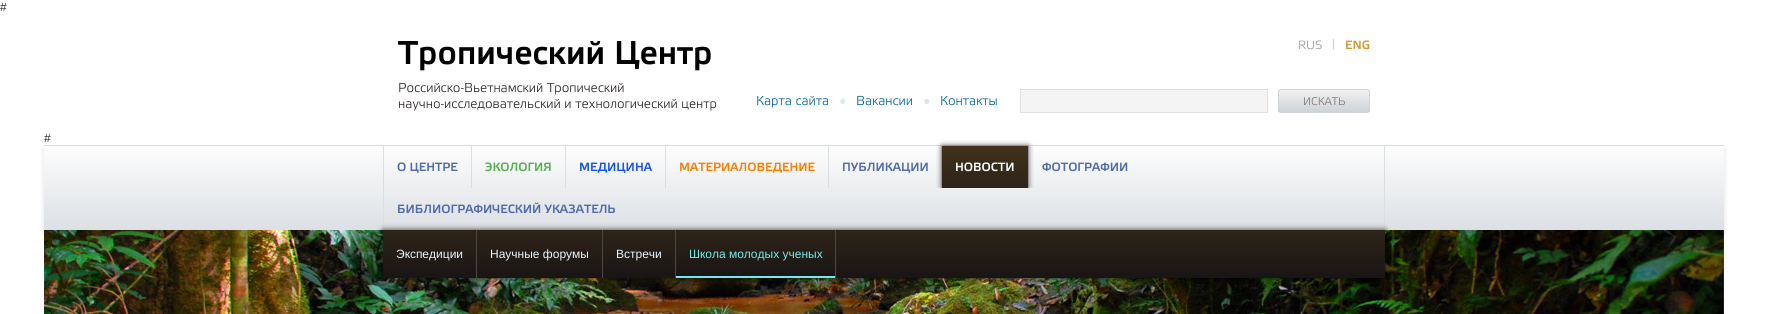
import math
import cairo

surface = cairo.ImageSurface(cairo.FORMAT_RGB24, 1768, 314)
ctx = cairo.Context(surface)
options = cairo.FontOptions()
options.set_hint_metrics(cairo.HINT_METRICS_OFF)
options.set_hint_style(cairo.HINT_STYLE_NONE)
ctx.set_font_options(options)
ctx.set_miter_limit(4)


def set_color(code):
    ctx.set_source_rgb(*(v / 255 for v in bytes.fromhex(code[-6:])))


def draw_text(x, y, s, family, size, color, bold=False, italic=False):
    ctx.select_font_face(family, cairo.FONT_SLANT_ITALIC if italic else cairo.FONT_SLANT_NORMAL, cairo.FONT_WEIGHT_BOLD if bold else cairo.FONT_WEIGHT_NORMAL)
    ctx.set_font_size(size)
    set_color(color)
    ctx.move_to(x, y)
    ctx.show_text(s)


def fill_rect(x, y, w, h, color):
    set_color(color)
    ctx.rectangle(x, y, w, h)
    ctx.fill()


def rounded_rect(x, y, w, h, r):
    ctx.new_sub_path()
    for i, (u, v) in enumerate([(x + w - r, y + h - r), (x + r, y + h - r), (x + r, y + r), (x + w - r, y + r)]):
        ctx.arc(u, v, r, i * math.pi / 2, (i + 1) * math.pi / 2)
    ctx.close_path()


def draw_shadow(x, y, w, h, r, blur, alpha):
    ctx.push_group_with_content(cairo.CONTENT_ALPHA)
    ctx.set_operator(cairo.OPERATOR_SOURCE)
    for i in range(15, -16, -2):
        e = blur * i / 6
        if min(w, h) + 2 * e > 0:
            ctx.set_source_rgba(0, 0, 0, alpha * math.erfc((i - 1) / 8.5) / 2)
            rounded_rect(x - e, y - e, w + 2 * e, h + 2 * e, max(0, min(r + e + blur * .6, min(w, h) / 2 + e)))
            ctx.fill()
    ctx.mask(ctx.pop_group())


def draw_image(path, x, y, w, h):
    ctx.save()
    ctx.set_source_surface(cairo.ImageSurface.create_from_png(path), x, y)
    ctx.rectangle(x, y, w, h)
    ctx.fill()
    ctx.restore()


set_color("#ffffff")
ctx.paint()
draw_text(0, 11, "#", "Liberation Sans", 12, "#2f2828")
draw_text(398, 64, "Тропический Центр", "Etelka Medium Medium", 33, "#000000")
draw_text(1298, 49, "RUS", "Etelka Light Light", 12, "#999999")
draw_text(1332, 47, "|", "Liberation Sans", 11, "#cccccc")
draw_text(1345, 49, "ENG", "Etelka Medium Medium", 12, "#d69939")
draw_text(398, 92, "Российско-Вьетнамский Тропический", "Etelka Light Light", 13, "#2f2828")
draw_text(398, 108, "научно-исследовательский и технологический центр", "Etelka Light Light", 13, "#2f2828")
draw_text(756, 105, "Карта сайта", "Etelka Light Light", 13, "#006699")
draw_image("assets/img1.png", 840, 99, 6, 5)
draw_text(856, 105, "Вакансии", "Etelka Light Light", 13, "#006699")
draw_image("assets/img1.png", 924, 99, 6, 5)
draw_text(940, 105, "Контакты", "Etelka Light Light", 13, "#006699")
ctx.rectangle(1020.5, 89.5, 247, 23)
set_color("#dce0e2")
ctx.set_line_width(1)
ctx.stroke()
fill_rect(1021, 90, 246, 22, "#f4f4f4")
ctx.save()
rounded_rect(1278, 89, 92, 24, 3)
ctx.clip()
gradient = cairo.LinearGradient(1279, 90, 1279, 112)
gradient.add_color_stop_rgba(0, 0.945, 0.945, 0.945, 1)
gradient.add_color_stop_rgba(1, 0.804, 0.827, 0.839, 1)
ctx.set_source(gradient)
ctx.rectangle(1278, 90, 92, 22)
ctx.fill()
ctx.restore()
rounded_rect(1278.5, 89.5, 91, 23, 2.5)
set_color("#cdd3d6")
ctx.stroke()
draw_text(1303, 105, "ИСКАТЬ", "Etelka Light Light", 11, "#7f7373")
draw_text(44, 142, "#", "Liberation Sans", 12, "#2f2828")
set_color("#000000")
draw_shadow(44, 148, 1680, 85, 0, 2.5, 0.13)
gradient = cairo.LinearGradient(44, 146, 44, 230)
gradient.add_color_stop_rgba(0, 0.992, 0.992, 0.992, 1)
gradient.add_color_stop_rgba(1, 0.863, 0.878, 0.894, 1)
ctx.set_source(gradient)
ctx.rectangle(44, 146, 1680, 84)
ctx.fill()
fill_rect(44, 145, 1680, 1, "#dadee2")
fill_rect(1384, 146, 1, 84, "#dadee2")
fill_rect(383, 146, 1, 84, "#dadee2")
draw_text(397, 171, "О ЦЕНТРЕ", "Etelka Medium Medium", 12, "#506cac")
fill_rect(471, 146, 1, 42, "#dadee2")
draw_text(485, 171, "ЭКОЛОГИЯ", "Etelka Medium Medium", 12, "#56b14a")
fill_rect(565, 146, 1, 42, "#dadee2")
draw_text(579, 171, "МЕДИЦИНА", "Etelka Medium Medium", 12, "#1652ff")
fill_rect(665, 146, 1, 42, "#dadee2")
draw_text(679, 171, "МАТЕРИАЛОВЕДЕНИЕ", "Etelka Medium Medium", 12, "#ff7e00")
fill_rect(828, 146, 1, 42, "#dadee2")
draw_text(842, 171, "ПУБЛИКАЦИИ", "Etelka Medium Medium", 12, "#506cac")
fill_rect(941, 146, 1, 42, "#dadee2")
fill_rect(1028, 146, 1, 42, "#dadee2")
ctx.save()
ctx.rectangle(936, 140, 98, 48)
ctx.clip()
set_color("#000000")
draw_shadow(942, 146, 86, 42, 0, 3, 0.75)
ctx.restore()
gradient = cairo.LinearGradient(942, 146, 942, 188)
gradient.add_color_stop_rgba(0, 0.255, 0.196, 0.118, 1)
gradient.add_color_stop_rgba(1, 0.176, 0.137, 0.098, 1)
ctx.set_source(gradient)
ctx.rectangle(942, 146, 86, 42)
ctx.fill()
draw_text(955, 171, "НОВОСТИ", "Etelka Medium Medium", 12, "#ffffff")
draw_text(1042, 171, "ФОТОГРАФИИ", "Etelka Medium Medium", 12, "#506cac")
draw_text(397, 213, "БИБЛИОГРАФИЧЕСКИЙ УКАЗАТЕЛЬ", "Etelka Medium Medium", 12, "#506cac")
draw_image("assets/img2.png", 44, 230, 1680, 84)
set_color("#000000")
draw_shadow(383, 230, 1002, 48, 0, 3, 0.75)
gradient = cairo.LinearGradient(383, 230, 383, 278)
gradient.add_color_stop_rgba(0, 0.18, 0.141, 0.098, 1)
gradient.add_color_stop_rgba(1, 0.098, 0.082, 0.082, 1)
ctx.set_source(gradient)
ctx.rectangle(383, 230, 1002, 48)
ctx.fill()
fill_rect(476, 230, 1, 48, "#4f4840")
draw_text(396, 258, "Экспедиции", "Liberation Sans", 12, "#e8f5fd")
fill_rect(602, 230, 1, 48, "#4f4840")
draw_text(490, 258, "Научные форумы", "Liberation Sans", 12, "#e8f5fd")
fill_rect(675, 230, 1, 48, "#4f4840")
draw_text(616, 258, "Встречи", "Liberation Sans", 12, "#e8f5fd")
fill_rect(835, 230, 1, 48, "#4f4840")
fill_rect(676, 276, 159, 2, "#71eae9")
draw_text(689, 258, "Школа молодых ученых", "Liberation Sans", 12, "#71eae9")
surface.write_to_png("output.png")
